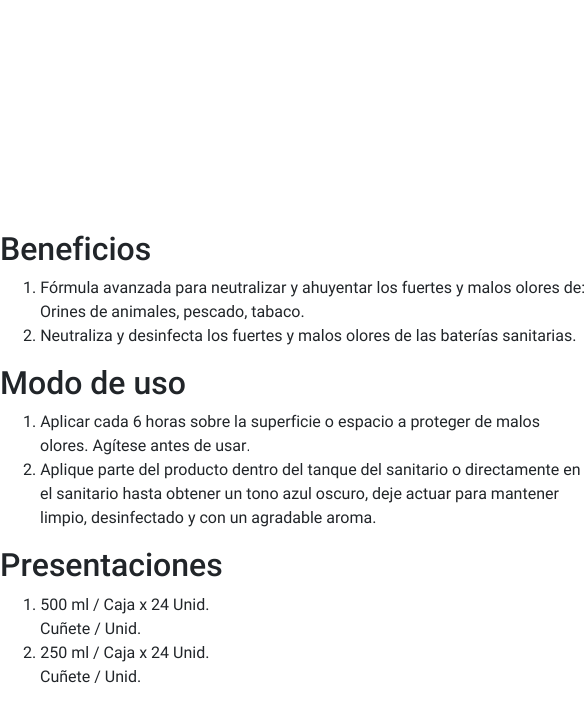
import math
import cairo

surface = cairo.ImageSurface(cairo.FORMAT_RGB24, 588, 703)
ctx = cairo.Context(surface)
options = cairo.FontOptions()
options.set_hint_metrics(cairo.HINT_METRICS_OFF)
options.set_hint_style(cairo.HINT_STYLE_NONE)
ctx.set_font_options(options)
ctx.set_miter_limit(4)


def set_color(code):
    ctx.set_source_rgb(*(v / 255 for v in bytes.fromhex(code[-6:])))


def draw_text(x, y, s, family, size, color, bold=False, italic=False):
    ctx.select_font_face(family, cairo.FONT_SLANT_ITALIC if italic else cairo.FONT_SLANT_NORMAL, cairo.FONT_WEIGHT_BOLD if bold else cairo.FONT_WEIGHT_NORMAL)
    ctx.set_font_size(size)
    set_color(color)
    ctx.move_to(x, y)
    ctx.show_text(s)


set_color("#ffffff")
ctx.paint()
draw_text(0, 260, "Beneficios", "Roboto Medium", 32, "#212529")
draw_text(23, 293, "1. Fórmula avanzada para neutralizar y ahuyentar los fuertes y malos olores de:", "Roboto", 16, "#212529")
draw_text(40, 317, "Orines de animales, pescado, tabaco.", "Roboto", 16, "#212529")
draw_text(23, 341, "2. Neutraliza y desinfecta los fuertes y malos olores de las baterías sanitarias.", "Roboto", 16, "#212529")
draw_text(0, 394, "Modo de uso", "Roboto Medium", 32, "#212529")
draw_text(23, 427, "1. Aplicar cada 6 horas sobre la superficie o espacio a proteger de malos", "Roboto", 16, "#212529")
draw_text(40, 451, "olores. Agítese antes de usar.", "Roboto", 16, "#212529")
draw_text(23, 475, "2. Aplique parte del producto dentro del tanque del sanitario o directamente en", "Roboto", 16, "#212529")
draw_text(40, 499, "el sanitario hasta obtener un tono azul oscuro, deje actuar para mantener", "Roboto", 16, "#212529")
draw_text(40, 523, "limpio, desinfectado y con un agradable aroma.", "Roboto", 16, "#212529")
draw_text(0, 576, "Presentaciones", "Roboto Medium", 32, "#212529")
draw_text(23, 610, "1. 500 ml / Caja x 24 Unid.", "Roboto", 16, "#212529")
draw_text(40, 634, "Cuñete / Unid.", "Roboto", 16, "#212529")
draw_text(23, 658, "2. 250 ml / Caja x 24 Unid.", "Roboto", 16, "#212529")
draw_text(40, 682, "Cuñete / Unid.", "Roboto", 16, "#212529")
surface.write_to_png("output.png")
